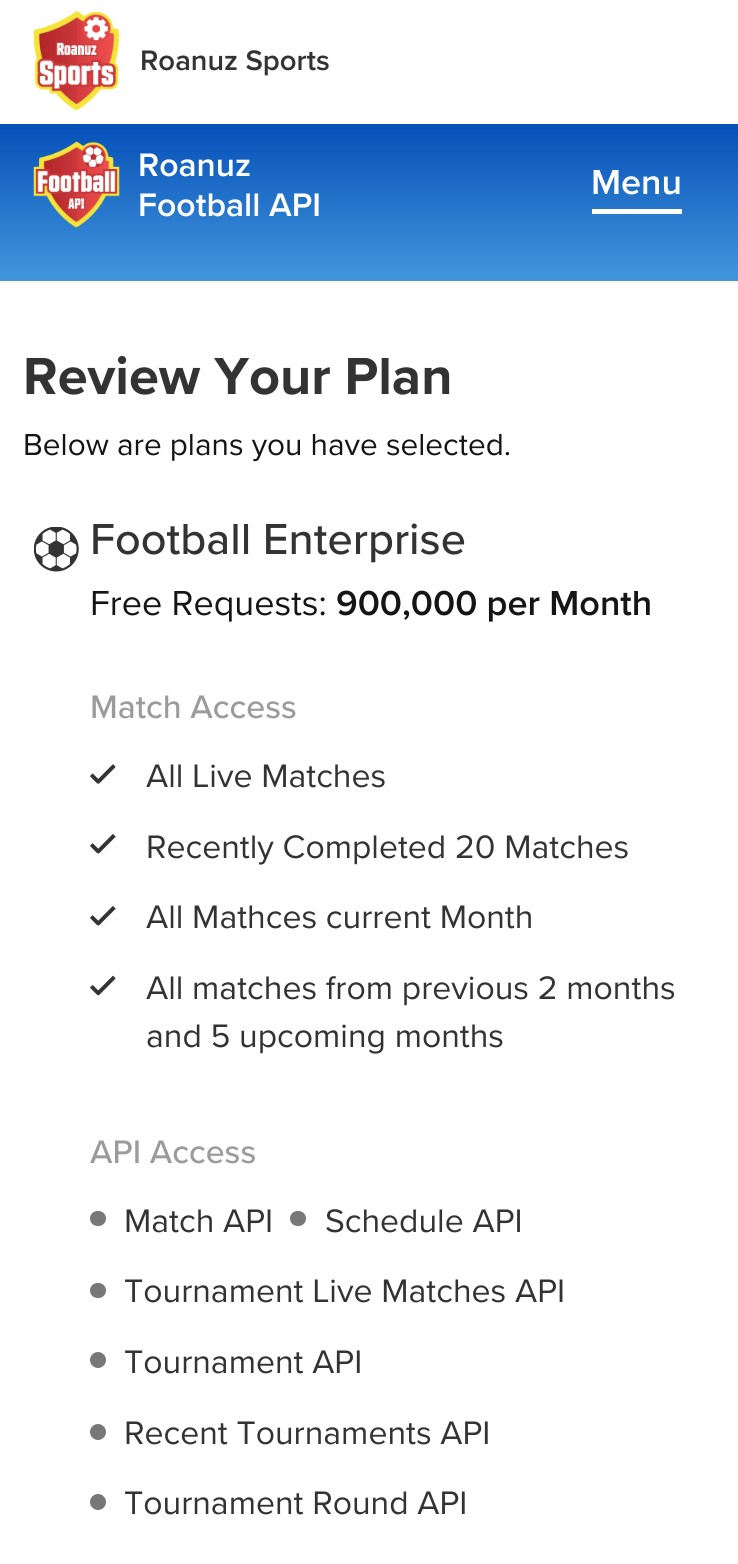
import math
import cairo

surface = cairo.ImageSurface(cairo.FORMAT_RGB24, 738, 1564)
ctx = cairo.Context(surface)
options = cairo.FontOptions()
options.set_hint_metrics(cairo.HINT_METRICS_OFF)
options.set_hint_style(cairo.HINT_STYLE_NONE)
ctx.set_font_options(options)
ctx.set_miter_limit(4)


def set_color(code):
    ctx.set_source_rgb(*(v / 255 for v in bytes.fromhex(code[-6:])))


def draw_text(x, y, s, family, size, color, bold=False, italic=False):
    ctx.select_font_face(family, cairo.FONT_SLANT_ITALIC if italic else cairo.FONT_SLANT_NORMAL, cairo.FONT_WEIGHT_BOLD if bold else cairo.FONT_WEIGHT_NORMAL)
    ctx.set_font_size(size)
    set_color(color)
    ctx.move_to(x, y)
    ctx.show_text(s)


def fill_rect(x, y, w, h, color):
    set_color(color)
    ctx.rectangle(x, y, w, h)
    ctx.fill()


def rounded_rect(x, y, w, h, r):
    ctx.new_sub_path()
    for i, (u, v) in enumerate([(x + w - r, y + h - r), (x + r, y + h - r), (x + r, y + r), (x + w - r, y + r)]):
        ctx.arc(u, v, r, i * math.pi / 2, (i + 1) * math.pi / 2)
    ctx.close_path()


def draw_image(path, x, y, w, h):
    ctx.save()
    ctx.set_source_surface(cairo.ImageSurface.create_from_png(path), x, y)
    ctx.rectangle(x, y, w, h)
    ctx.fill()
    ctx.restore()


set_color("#ffffff")
ctx.paint()
draw_image("assets/img1.png", 33, 11, 87, 100)
draw_text(140, 70, "Roanuz Sports", "Proxima Nova SemiBold", 29.25, "#333333")
gradient = cairo.LinearGradient(369, 124, 369, 281)
gradient.add_color_stop_rgba(0.02, 0.027, 0.318, 0.725, 1)
gradient.add_color_stop_rgba(1, 0.259, 0.592, 0.863, 1)
ctx.set_source(gradient)
ctx.rectangle(0, 124, 738, 157)
ctx.fill()
draw_image("assets/img2.png", 33, 141, 87, 87)
draw_text(138, 176, "Roanuz", "Proxima Nova SemiBold", 33.75, "#ffffff")
draw_text(138, 216, "Football API", "Proxima Nova SemiBold", 33.75, "#ffffff")
fill_rect(592, 209, 90, 5, "#ffffff")
draw_text(591, 194, "Menu", "Proxima Nova SemiBold", 36, "#ffffff")
draw_text(23, 394, "Review Your Plan", "Proxima Nova", 54, "#333333", bold=True)
draw_text(23, 455, "Below are plans you have selected.", "Proxima Nova", 31.5, "#151515")
draw_image("assets/img3.png", 34, 527, 45, 45)
draw_text(90, 554, "Football Enterprise", "Proxima Nova Medium", 45, "#333333")
draw_text(90, 615, "Free Requests:", "Proxima Nova", 36, "#151515")
draw_text(336, 615, "900,000 per Month", "Proxima Nova SemiBold", 36, "#151515")
draw_text(90, 718, "Match Access", "Proxima Nova Medium", 33.75, "#9b9b9b")
draw_image("assets/img4.png", 90, 764, 26, 20)
draw_text(146, 787, "All Live Matches", "Proxima Nova", 33.75, "#333333")
draw_image("assets/img5.png", 90, 834, 26, 20)
draw_text(146, 858, "Recently Completed 20 Matches", "Proxima Nova", 33.75, "#333333")
draw_image("assets/img5.png", 90, 906, 26, 20)
draw_text(146, 928, "All Mathces current Month", "Proxima Nova", 33.75, "#333333")
draw_image("assets/img6.png", 90, 975, 26, 21)
draw_text(146, 999, "All matches from previous 2 months", "Proxima Nova", 33.75, "#333333")
draw_text(146, 1047, "and 5 upcoming months", "Proxima Nova", 33.75, "#333333")
draw_text(90, 1163, "API Access", "Proxima Nova Medium", 33.75, "#9b9b9b")
set_color("#777777")
rounded_rect(90, 1211, 16, 15, 7.5)
ctx.fill()
draw_text(124, 1232, "Match API", "Proxima Nova", 33.75, "#333333")
set_color("#777777")
rounded_rect(290, 1211, 16, 15, 7.5)
ctx.fill()
draw_text(325, 1232, "Schedule API", "Proxima Nova", 33.75, "#333333")
set_color("#777777")
rounded_rect(90, 1283, 16, 15, 7.5)
ctx.fill()
draw_text(124, 1302, "Tournament Live Matches API", "Proxima Nova", 33.75, "#333333")
set_color("#777777")
ctx.new_path()
ctx.arc(98, 1360, 8, 0, 2 * math.pi)
ctx.fill()
draw_text(124, 1373, "Tournament API", "Proxima Nova", 33.75, "#333333")
set_color("#777777")
ctx.new_path()
ctx.arc(98, 1432, 8, 0, 2 * math.pi)
ctx.fill()
draw_text(124, 1444, "Recent Tournaments API", "Proxima Nova", 33.75, "#333333")
set_color("#777777")
ctx.new_path()
ctx.arc(98, 1502, 8, 0, 2 * math.pi)
ctx.fill()
draw_text(124, 1514, "Tournament Round API", "Proxima Nova", 33.75, "#333333")
surface.write_to_png("output.png")
